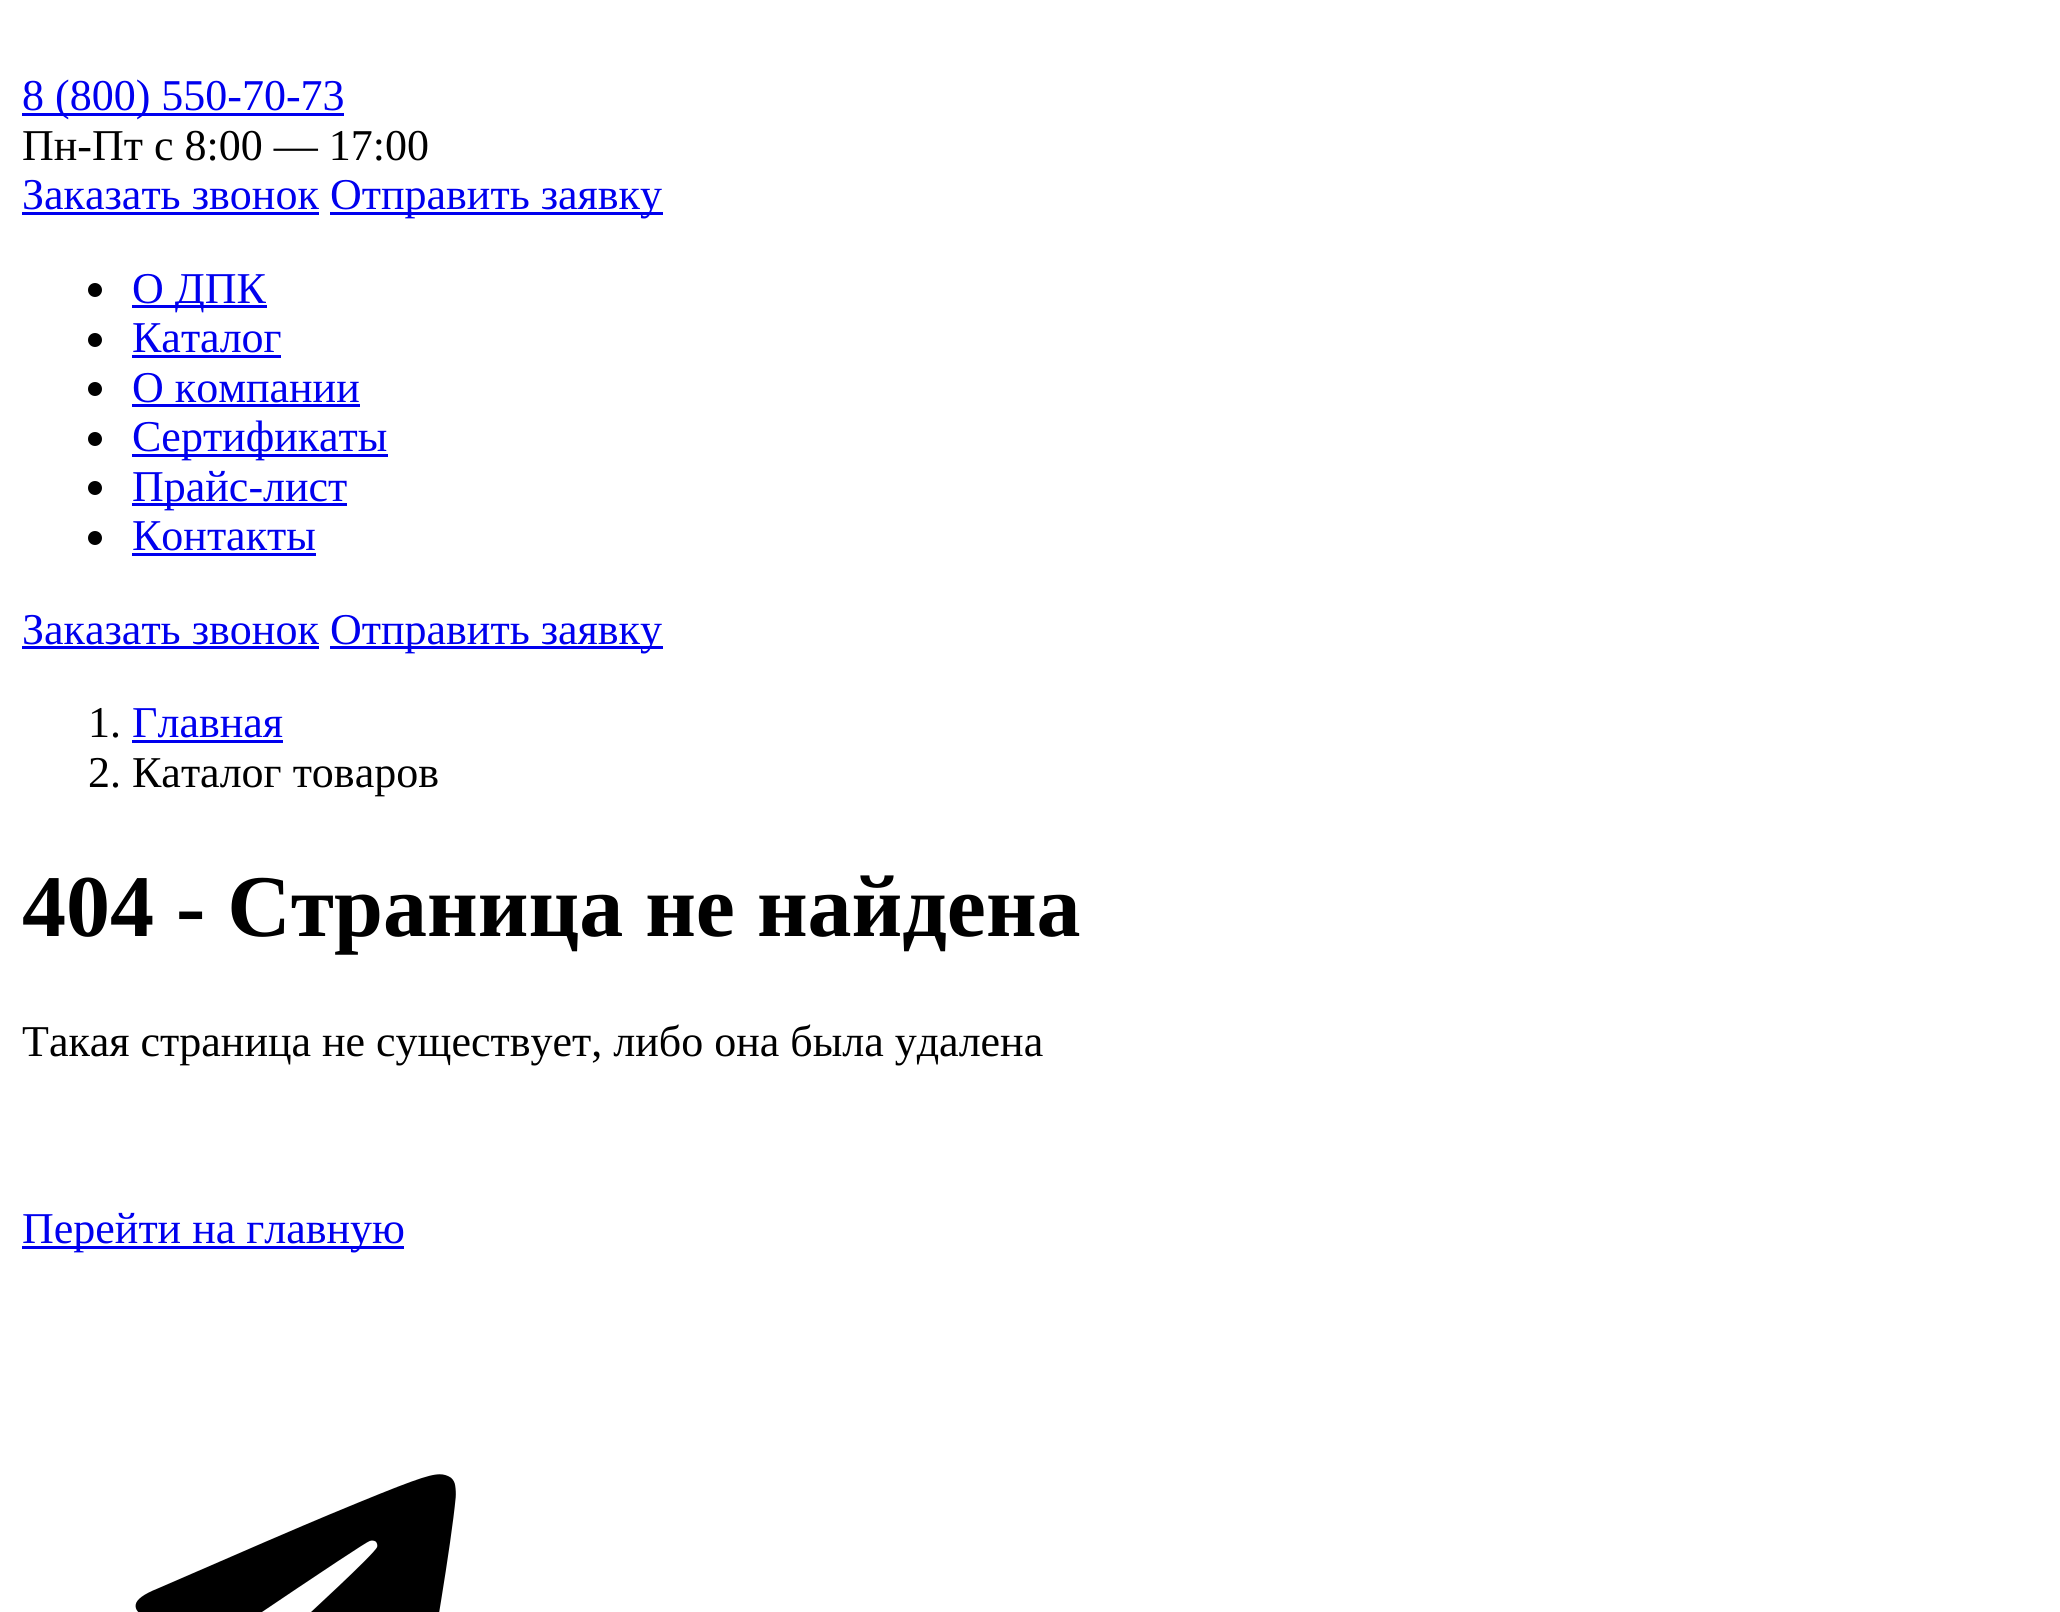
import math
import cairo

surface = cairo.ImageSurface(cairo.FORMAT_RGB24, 2060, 1612)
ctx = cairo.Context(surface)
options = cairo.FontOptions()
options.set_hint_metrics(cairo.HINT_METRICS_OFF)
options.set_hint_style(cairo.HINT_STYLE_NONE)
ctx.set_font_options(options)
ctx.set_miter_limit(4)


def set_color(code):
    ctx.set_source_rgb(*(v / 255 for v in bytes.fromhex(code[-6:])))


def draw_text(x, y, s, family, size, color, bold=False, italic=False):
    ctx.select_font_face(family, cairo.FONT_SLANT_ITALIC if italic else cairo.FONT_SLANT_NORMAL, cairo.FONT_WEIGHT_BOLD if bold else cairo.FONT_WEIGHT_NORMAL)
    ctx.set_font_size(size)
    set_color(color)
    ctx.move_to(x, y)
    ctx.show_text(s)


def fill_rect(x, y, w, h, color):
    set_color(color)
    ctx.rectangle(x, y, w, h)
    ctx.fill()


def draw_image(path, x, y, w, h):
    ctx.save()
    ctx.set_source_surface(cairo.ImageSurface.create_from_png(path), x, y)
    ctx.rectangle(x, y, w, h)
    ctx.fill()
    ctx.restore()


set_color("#ffffff")
ctx.paint()
fill_rect(22, 113, 322, 3, "#0000ee")
draw_text(22, 110, "8 (800) 550-70-73", "Liberation Serif", 44, "#0000ee")
draw_text(22, 160, "Пн-Пт c 8:00 — 17:00", "Liberation Serif", 44, "#000000")
draw_text(22, 209, "Заказать звонок", "Liberation Serif", 44, "#0000ee")
fill_rect(22, 212, 297, 3, "#0000ee")
fill_rect(330, 212, 333, 3, "#0000ee")
draw_text(330, 209, "Отправить заявку", "Liberation Serif", 44, "#0000ee")
set_color("#000000")
ctx.new_path()
ctx.arc(95, 290, 7, 0, 2 * math.pi)
ctx.fill()
fill_rect(132, 305, 135, 3, "#0000ee")
draw_text(132, 303, "О ДПК", "Liberation Serif", 44, "#0000ee")
set_color("#000000")
ctx.new_path()
ctx.arc(95, 340, 7, 0, 2 * math.pi)
ctx.fill()
draw_text(132, 352, "Каталог", "Liberation Serif", 44, "#0000ee")
fill_rect(132, 355, 149, 3, "#0000ee")
set_color("#000000")
ctx.new_path()
ctx.arc(95, 389, 7, 0, 2 * math.pi)
ctx.fill()
draw_text(132, 402, "О компании", "Liberation Serif", 44, "#0000ee")
fill_rect(132, 404, 228, 3, "#0000ee")
set_color("#000000")
ctx.new_path()
ctx.arc(95, 439, 7, 0, 2 * math.pi)
ctx.fill()
fill_rect(132, 454, 256, 3, "#0000ee")
draw_text(132, 451, "Сертификаты", "Liberation Serif", 44, "#0000ee")
set_color("#000000")
ctx.new_path()
ctx.arc(95, 488, 7, 0, 2 * math.pi)
ctx.fill()
fill_rect(132, 503, 215, 3, "#0000ee")
draw_text(132, 501, "Прайс-лист", "Liberation Serif", 44, "#0000ee")
set_color("#000000")
ctx.new_path()
ctx.arc(95, 538, 7, 0, 2 * math.pi)
ctx.fill()
draw_text(132, 550, "Контакты", "Liberation Serif", 44, "#0000ee")
fill_rect(132, 553, 184, 3, "#0000ee")
draw_text(22, 644, "Заказать звонок", "Liberation Serif", 44, "#0000ee")
fill_rect(22, 646, 297, 3, "#0000ee")
fill_rect(330, 646, 333, 3, "#0000ee")
draw_text(330, 644, "Отправить заявку", "Liberation Serif", 44, "#0000ee")
draw_text(88, 737, "1.", "Liberation Serif", 44, "#000000")
draw_text(132, 737, "Главная", "Liberation Serif", 44, "#0000ee")
fill_rect(132, 740, 151, 3, "#0000ee")
draw_text(88, 787, "2. Каталог товаров", "Liberation Serif", 44, "#000000")
draw_text(22, 936, "404 - Страница не найдена", "Liberation Serif", 88, "#000000", bold=True)
draw_text(22, 1056, "Такая страница не существует, либо она была удалена", "Liberation Serif", 44, "#000000")
fill_rect(22, 1246, 382, 3, "#0000ee")
draw_text(22, 1243, "Перейти на главную", "Liberation Serif", 44, "#0000ee")
draw_image("assets/img1.png", 135, 1474, 321, 138)
surface.write_to_png("output.png")
